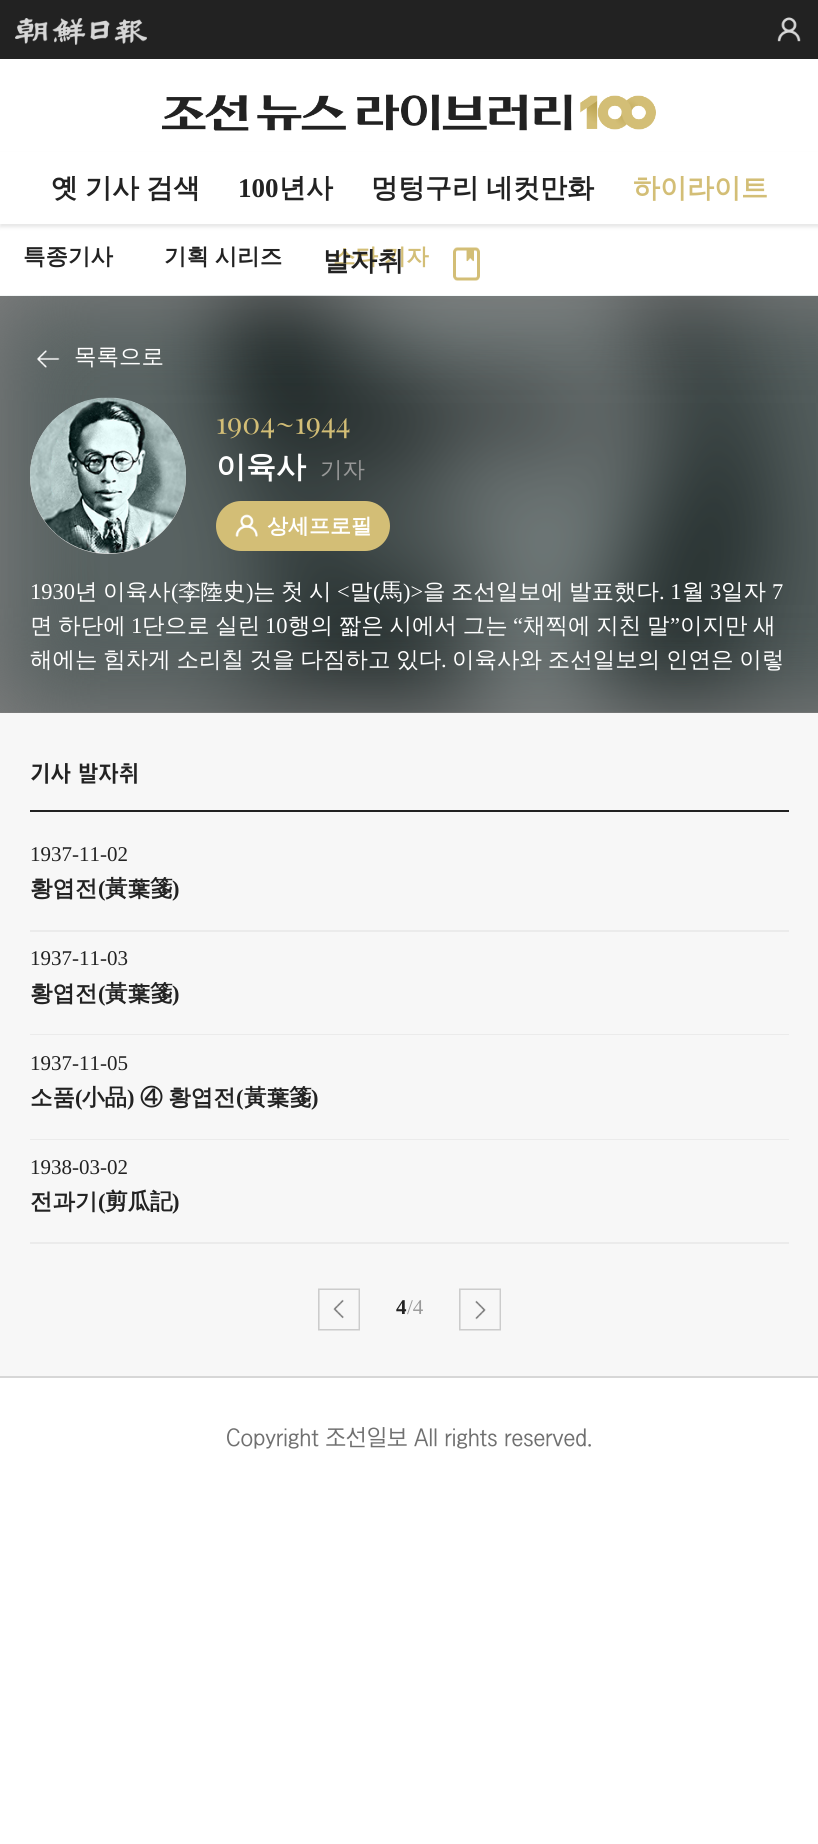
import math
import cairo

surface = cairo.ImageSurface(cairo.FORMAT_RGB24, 818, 1844)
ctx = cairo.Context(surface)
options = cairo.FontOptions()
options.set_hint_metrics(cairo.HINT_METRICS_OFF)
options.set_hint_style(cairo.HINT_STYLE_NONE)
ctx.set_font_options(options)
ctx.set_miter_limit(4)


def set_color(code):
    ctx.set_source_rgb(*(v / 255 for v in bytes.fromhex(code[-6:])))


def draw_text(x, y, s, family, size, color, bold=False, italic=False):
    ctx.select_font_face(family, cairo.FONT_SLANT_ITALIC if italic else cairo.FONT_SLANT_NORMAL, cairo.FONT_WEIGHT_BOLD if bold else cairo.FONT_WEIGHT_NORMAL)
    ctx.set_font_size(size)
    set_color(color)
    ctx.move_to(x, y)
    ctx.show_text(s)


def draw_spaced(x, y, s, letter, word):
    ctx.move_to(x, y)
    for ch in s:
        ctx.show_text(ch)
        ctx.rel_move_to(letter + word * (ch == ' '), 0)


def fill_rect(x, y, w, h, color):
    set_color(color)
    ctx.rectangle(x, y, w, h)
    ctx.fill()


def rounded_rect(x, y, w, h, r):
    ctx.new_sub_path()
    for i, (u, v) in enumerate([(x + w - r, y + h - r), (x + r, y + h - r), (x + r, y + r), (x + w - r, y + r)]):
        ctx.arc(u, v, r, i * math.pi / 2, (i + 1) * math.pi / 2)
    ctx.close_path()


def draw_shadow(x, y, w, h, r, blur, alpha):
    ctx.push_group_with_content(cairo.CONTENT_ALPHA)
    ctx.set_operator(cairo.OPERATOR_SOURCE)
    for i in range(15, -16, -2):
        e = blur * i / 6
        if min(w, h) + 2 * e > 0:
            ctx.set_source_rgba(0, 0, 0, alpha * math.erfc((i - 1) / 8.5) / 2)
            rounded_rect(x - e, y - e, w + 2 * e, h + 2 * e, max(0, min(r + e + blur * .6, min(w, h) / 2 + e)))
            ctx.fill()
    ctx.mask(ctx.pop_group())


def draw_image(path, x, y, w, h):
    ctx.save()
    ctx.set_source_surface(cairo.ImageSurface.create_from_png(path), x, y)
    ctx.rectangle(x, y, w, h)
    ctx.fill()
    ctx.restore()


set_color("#ffffff")
ctx.paint()
fill_rect(0, 296, 818, 417, "#808080")
fill_rect(0, 0, 818, 59, "#222222")
draw_image("assets/img1.png", 15, 18, 132, 27)
draw_image("assets/img2.png", 777, 17, 24, 25)
draw_image("assets/img3.png", 162, 94, 494, 37)
ctx.save()
ctx.set_fill_rule(cairo.FILL_RULE_EVEN_ODD)
ctx.new_path()
ctx.move_to(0, 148)
ctx.line_to(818, 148)
ctx.line_to(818, 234)
ctx.line_to(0, 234)
ctx.close_path()
ctx.move_to(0, 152)
ctx.line_to(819, 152)
ctx.line_to(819, 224)
ctx.line_to(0, 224)
ctx.close_path()
ctx.clip()
set_color("#000000")
draw_shadow(0, 155, 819, 72, 0, 2, 0.1)
ctx.restore()
ctx.select_font_face("WenQuanYi Zen Hei", cairo.FONT_SLANT_NORMAL, cairo.FONT_WEIGHT_BOLD)
ctx.set_font_size(27)
draw_spaced(51, 197, "옛 기사 검색", 0, -1)
draw_text(238, 197, "100", "Liberation Serif", 27, "#222222", bold=True)
draw_text(279, 197, "년사", "WenQuanYi Zen Hei", 27, "#222222", bold=True)
draw_spaced(371, 197, "멍텅구리 네컷만화", 0, -1)
draw_text(633, 197, "하이라이트", "WenQuanYi Zen Hei", 27, "#d3be76", bold=True)
ctx.set_font_size(22.5)
draw_spaced(333, 264, "스타 기자", 0, -1)
draw_text(323, 270, "발자취", "WenQuanYi Zen Hei", 27, "#222222", bold=True)
draw_image("assets/img4.png", 453, 247, 27, 34)
draw_text(23, 264, "특종기사", "WenQuanYi Zen Hei", 22.5, "#222222", bold=True)
draw_spaced(164, 264, "기획 시리즈", 0, -1)
draw_image("assets/img5.png", 0, 295, 818, 418)
draw_image("assets/img6.png", 37, 350, 23, 18)
draw_text(74, 364, "목록으로", "WenQuanYi Zen Hei Medium", 22.5, "#ffffff")
set_color("#d6d6d6")
ctx.new_path()
ctx.arc(108, 476, 78, 0, 2 * math.pi)
ctx.fill()
draw_image("assets/img7.png", 30, 397, 156, 157)
draw_text(216, 434, "1904~1944", "Playfair Display", 30, "#d3be76")
draw_text(216, 477, "이육사", "WenQuanYi Zen Hei", 30, "#ffffff", bold=True)
draw_text(320, 477, "기자", "WenQuanYi Zen Hei Medium", 22.5, "#999999")
set_color("#d3be76")
rounded_rect(216, 501, 174, 50, 25)
ctx.fill()
draw_image("assets/img8.png", 235, 514, 23, 23)
draw_text(267, 533, "상세프로필", "WenQuanYi Zen Hei", 21, "#ffffff", bold=True)
draw_text(30, 599, "1930", "Liberation Serif", 22.5, "#ffffff")
draw_text(75, 599, "년", "WenQuanYi Zen Hei Medium", 22.5, "#ffffff")
draw_text(103, 599, "이육사", "WenQuanYi Zen Hei Medium", 22.5, "#ffffff")
draw_text(171, 599, "(", "Liberation Serif", 22.5, "#ffffff")
draw_text(178, 599, "李陸史", "WenQuanYi Zen Hei Medium", 22.5, "#ffffff")
draw_text(246, 599, ")", "Liberation Serif", 22.5, "#ffffff")
draw_text(253, 599, "는", "WenQuanYi Zen Hei Medium", 22.5, "#ffffff")
draw_text(281, 599, "첫", "WenQuanYi Zen Hei Medium", 22.5, "#ffffff")
draw_text(309, 599, "시", "WenQuanYi Zen Hei Medium", 22.5, "#ffffff")
draw_text(337, 599, "<", "Liberation Serif", 22.5, "#ffffff")
draw_text(350, 599, "말", "WenQuanYi Zen Hei Medium", 22.5, "#ffffff")
draw_text(373, 599, "(", "Liberation Serif", 22.5, "#ffffff")
draw_text(380, 599, "馬", "WenQuanYi Zen Hei Medium", 22.5, "#ffffff")
draw_text(403, 599, ")>", "Liberation Serif", 22.5, "#ffffff")
draw_text(423, 599, "을", "WenQuanYi Zen Hei Medium", 22.5, "#ffffff")
draw_text(451, 599, "조선일보에", "WenQuanYi Zen Hei Medium", 22.5, "#ffffff")
draw_text(569, 599, "발표했다", "WenQuanYi Zen Hei Medium", 22.5, "#ffffff")
draw_text(659, 599, ". 1", "Liberation Serif", 22.5, "#ffffff")
draw_text(682, 599, "월", "WenQuanYi Zen Hei Medium", 22.5, "#ffffff")
draw_text(710, 599, "3", "Liberation Serif", 22.5, "#ffffff")
draw_text(721, 599, "일자", "WenQuanYi Zen Hei Medium", 22.5, "#ffffff")
draw_text(772, 599, "7", "Liberation Serif", 22.5, "#ffffff")
ctx.select_font_face("WenQuanYi Zen Hei Medium")
draw_spaced(30, 633, "면 하단에", 0, -1)
draw_text(131, 633, "1", "Liberation Serif", 22.5, "#ffffff")
ctx.select_font_face("WenQuanYi Zen Hei Medium")
draw_spaced(142, 633, "단으로 실린", 0, -1)
draw_text(265, 633, "10", "Liberation Serif", 22.5, "#ffffff")
ctx.select_font_face("WenQuanYi Zen Hei Medium")
draw_spaced(288, 633, "행의 짧은 시에서 그는", 0, -1)
draw_text(513, 633, "“", "Liberation Serif", 22.5, "#ffffff")
ctx.select_font_face("WenQuanYi Zen Hei Medium")
draw_spaced(523, 633, "채찍에 지친 말", 0, -1)
draw_text(670, 633, "”", "Liberation Serif", 22.5, "#ffffff")
ctx.select_font_face("WenQuanYi Zen Hei Medium")
draw_spaced(680, 633, "이지만 새", 0, -1)
draw_spaced(30, 667, "해에는 힘차게 소리칠 것을 다짐하고 있다", 0, -1)
draw_text(441, 667, ".", "Liberation Serif", 22.5, "#ffffff")
ctx.select_font_face("WenQuanYi Zen Hei Medium")
draw_spaced(452, 667, "이육사와 조선일보의 인연은 이렇", 0, -1)
fill_rect(0, 713, 818, 663, "#f7f7f7")
fill_rect(30, 810, 759, 2, "#222222")
draw_text(30, 782, "기사 발자취", "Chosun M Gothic", 22.5, "#222222", bold=True)
fill_rect(30, 930, 759, 2, "#ebebeb")
draw_text(30, 861, "1937-11-02", "Liberation Serif", 21, "#222222")
draw_text(30, 896, "황엽전", "WenQuanYi Zen Hei", 22.5, "#222222", bold=True)
draw_text(98, 896, "(", "Liberation Serif", 22.5, "#222222", bold=True)
draw_text(105, 896, "黃葉箋", "WenQuanYi Zen Hei", 22.5, "#222222", bold=True)
draw_text(172, 896, ")", "Liberation Serif", 22.5, "#222222", bold=True)
fill_rect(30, 1034, 759, 1, "#ebebeb")
draw_text(30, 965, "1937-11-03", "Liberation Serif", 21, "#222222")
draw_text(30, 1001, "황엽전", "WenQuanYi Zen Hei", 22.5, "#222222", bold=True)
draw_text(98, 1001, "(", "Liberation Serif", 22.5, "#222222", bold=True)
draw_text(105, 1001, "黃葉箋", "WenQuanYi Zen Hei", 22.5, "#222222", bold=True)
draw_text(172, 1001, ")", "Liberation Serif", 22.5, "#222222", bold=True)
fill_rect(30, 1139, 759, 1, "#ebebeb")
draw_text(30, 1070, "1937-11-05", "Liberation Serif", 21, "#222222")
draw_text(30, 1105, "소품", "WenQuanYi Zen Hei", 22.5, "#222222", bold=True)
draw_text(75, 1105, "(", "Liberation Serif", 22.5, "#222222", bold=True)
draw_text(82, 1105, "小品", "WenQuanYi Zen Hei", 22.5, "#222222", bold=True)
draw_text(127, 1105, ")", "Liberation Serif", 22.5, "#222222", bold=True)
ctx.select_font_face("WenQuanYi Zen Hei", cairo.FONT_SLANT_NORMAL, cairo.FONT_WEIGHT_BOLD)
draw_spaced(140, 1105, "④ 황엽전", 0, -1)
draw_text(236, 1105, "(", "Liberation Serif", 22.5, "#222222", bold=True)
draw_text(244, 1105, "黃葉箋", "WenQuanYi Zen Hei", 22.5, "#222222", bold=True)
draw_text(311, 1105, ")", "Liberation Serif", 22.5, "#222222", bold=True)
fill_rect(30, 1242, 759, 2, "#ebebeb")
draw_text(30, 1174, "1938-03-02", "Liberation Serif", 21, "#222222")
draw_text(30, 1209, "전과기", "WenQuanYi Zen Hei", 22.5, "#222222", bold=True)
draw_text(98, 1209, "(", "Liberation Serif", 22.5, "#222222", bold=True)
draw_text(105, 1209, "剪瓜記", "WenQuanYi Zen Hei", 22.5, "#222222", bold=True)
draw_text(172, 1209, ")", "Liberation Serif", 22.5, "#222222", bold=True)
draw_image("assets/img9.png", 318, 1288, 42, 43)
draw_text(396, 1314, "4", "Liberation Serif", 21, "#222222", bold=True)
draw_text(407, 1314, "/4", "Liberation Serif", 21, "#999999")
draw_image("assets/img10.png", 459, 1288, 42, 43)
fill_rect(0, 1376, 818, 2, "#d7d7d7")
draw_text(226, 1446, "Copyright 조선일보 All rights reserved.", "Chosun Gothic", 22.5, "#707070")
surface.write_to_png("output.png")
